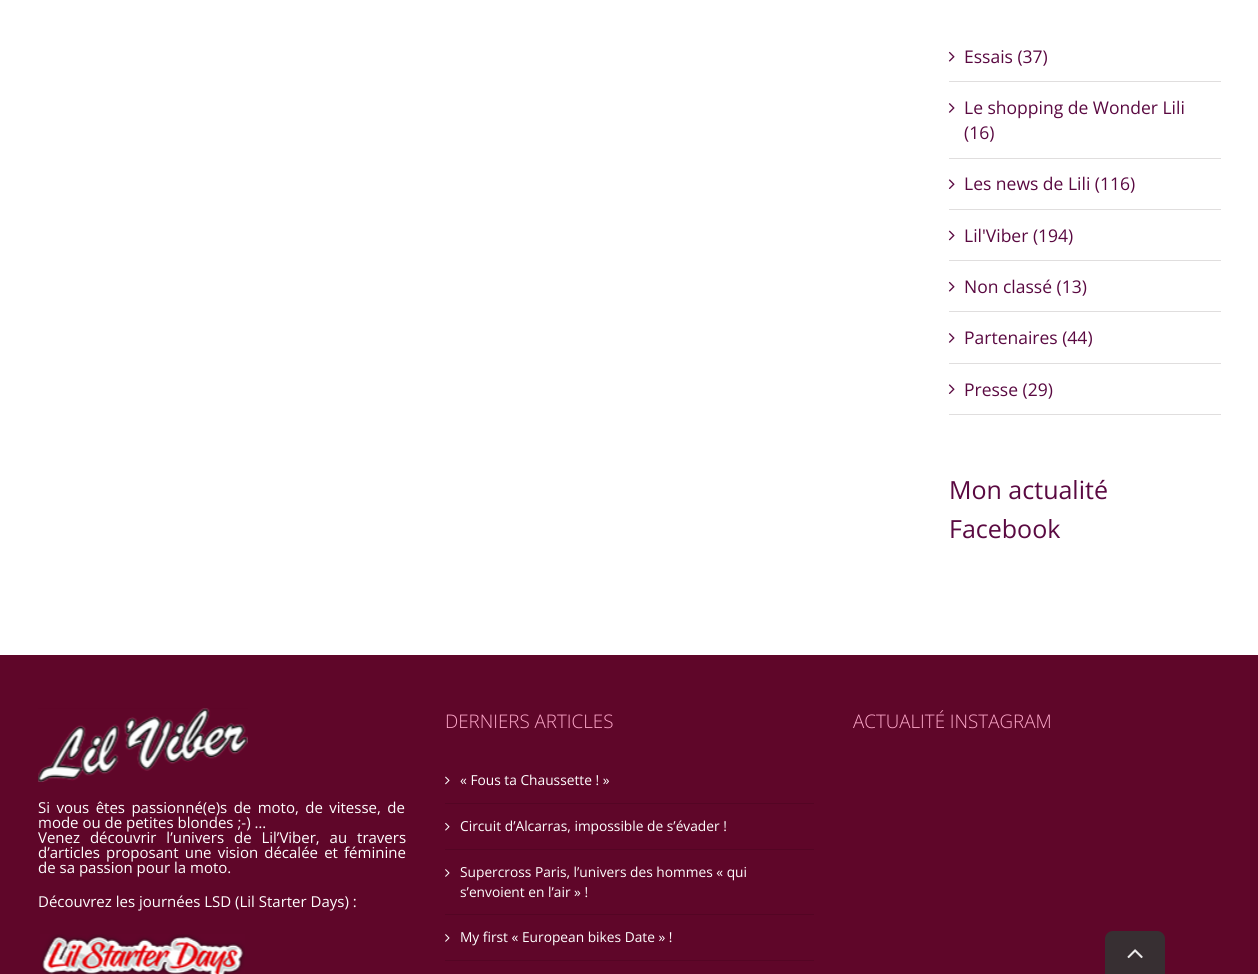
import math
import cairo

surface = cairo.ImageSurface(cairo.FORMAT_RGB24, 1258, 974)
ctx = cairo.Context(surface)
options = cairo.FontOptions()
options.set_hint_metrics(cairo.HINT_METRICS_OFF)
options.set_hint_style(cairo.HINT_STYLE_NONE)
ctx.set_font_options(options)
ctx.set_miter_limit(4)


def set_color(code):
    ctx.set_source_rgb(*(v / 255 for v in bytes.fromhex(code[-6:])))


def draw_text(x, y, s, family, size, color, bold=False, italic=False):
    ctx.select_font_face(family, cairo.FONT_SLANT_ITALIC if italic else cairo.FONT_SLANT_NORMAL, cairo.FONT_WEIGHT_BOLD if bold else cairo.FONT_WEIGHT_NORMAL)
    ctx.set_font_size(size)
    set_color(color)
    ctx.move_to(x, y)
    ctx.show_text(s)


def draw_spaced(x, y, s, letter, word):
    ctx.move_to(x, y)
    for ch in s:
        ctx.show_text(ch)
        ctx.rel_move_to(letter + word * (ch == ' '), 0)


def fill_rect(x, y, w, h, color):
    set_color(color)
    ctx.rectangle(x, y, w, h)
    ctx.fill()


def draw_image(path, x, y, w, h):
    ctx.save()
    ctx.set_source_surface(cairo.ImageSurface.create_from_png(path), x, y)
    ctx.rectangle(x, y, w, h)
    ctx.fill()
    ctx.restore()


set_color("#ffffff")
ctx.paint()
fill_rect(949, 81, 272, 1, "#e0dede")
draw_image("assets/img1.png", 948, 51, 7, 11)
draw_text(964, 63, "Essais (37)", "Open Sans", 17.5, "#5a0941")
fill_rect(949, 158, 272, 1, "#e0dede")
draw_image("assets/img2.png", 948, 103, 7, 10)
draw_text(964, 114, "Le shopping de Wonder Lili", "Open Sans", 17.5, "#5a0941")
draw_text(964, 139, "(16)", "Open Sans", 17.5, "#5a0941")
fill_rect(949, 209, 272, 1, "#e0dede")
draw_image("assets/img3.png", 948, 179, 7, 10)
draw_text(964, 190, "Les news de Lili (116)", "Open Sans", 17.5, "#5a0941")
fill_rect(949, 260, 272, 1, "#e0dede")
draw_image("assets/img4.png", 948, 230, 7, 11)
draw_text(964, 242, "Lil'Viber (194)", "Open Sans", 17.5, "#5a0941")
fill_rect(949, 311, 272, 1, "#e0dede")
draw_image("assets/img1.png", 948, 281, 7, 11)
draw_text(964, 293, "Non classé (13)", "Open Sans", 17.5, "#5a0941")
fill_rect(949, 363, 272, 1, "#e0dede")
draw_image("assets/img2.png", 948, 333, 7, 10)
draw_text(964, 344, "Partenaires (44)", "Open Sans", 17.5, "#5a0941")
fill_rect(949, 414, 272, 1, "#e0dede")
draw_image("assets/img3.png", 948, 384, 7, 10)
draw_text(964, 396, "Presse (29)", "Open Sans", 17.5, "#5a0941")
draw_text(949, 499, "Mon actualité", "Open Sans", 25, "#5a0941")
draw_text(949, 538, "Facebook", "Open Sans", 25, "#5a0941")
fill_rect(0, 655, 1258, 319, "#5f0629")
draw_image("assets/img5.png", 38, 708, 210, 74)
ctx.set_font_size(15)
set_color("#ffffff")
draw_spaced(38, 813, "Si vous êtes passionné(e)s de moto, de vitesse, de", 0, 2.5)
draw_text(38, 828, "mode ou de petites blondes ;-) …", "Open Sans", 15, "#ffffff")
draw_spaced(38, 843, "Venez découvrir l’univers de Lil’Viber, au travers", 0, 6)
draw_spaced(38, 858, "d’articles proposant une vision décalée et féminine", 0, 2.25)
draw_text(38, 873, "de sa passion pour la moto.", "Open Sans", 15, "#ffffff")
draw_text(38, 907, "Découvrez les journées LSD (Lil Starter Days) :", "Open Sans", 15, "#ffffff")
draw_image("assets/img6.png", 40, 934, 205, 40)
draw_text(445, 728, "DERNIERS ARTICLES", "Open Sans Light", 18.75, "#ffa9cb")
fill_rect(445, 803, 369, 1, "#540524")
draw_image("assets/img7.png", 445, 776, 5, 9)
draw_text(460, 785, "« Fous ta Chaussette ! »", "Open Sans", 13.75, "#ffffff")
fill_rect(445, 849, 369, 1, "#540524")
draw_image("assets/img8.png", 445, 822, 5, 9)
draw_text(460, 831, "Circuit d’Alcarras, impossible de s’évader !", "Open Sans", 13.75, "#ffffff")
fill_rect(445, 914, 369, 1, "#540524")
draw_image("assets/img9.png", 445, 869, 5, 8)
draw_text(460, 877, "Supercross Paris, l’univers des hommes « qui", "Open Sans", 13.75, "#ffffff")
draw_text(460, 897, "s’envoient en l’air » !", "Open Sans", 13.75, "#ffffff")
fill_rect(445, 960, 369, 1, "#540524")
draw_image("assets/img9.png", 445, 934, 5, 8)
draw_text(460, 942, "My first « European bikes Date » !", "Open Sans", 13.75, "#ffffff")
draw_text(853, 728, "ACTUALITÉ INSTAGRAM", "Open Sans Light", 18.75, "#ffa9cb")
set_color("#372f32")
ctx.new_path()
ctx.move_to(1113, 931)
ctx.line_to(1157, 931)
ctx.curve_to(1161.5, 931, 1165, 934.5, 1165, 939)
ctx.line_to(1165, 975)
ctx.line_to(1105, 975)
ctx.line_to(1105, 939)
ctx.curve_to(1105, 934.5, 1108.5, 931, 1113, 931)
ctx.close_path()
ctx.fill()
draw_image("assets/img10.png", 1127, 949, 16, 10)
surface.write_to_png("output.png")
